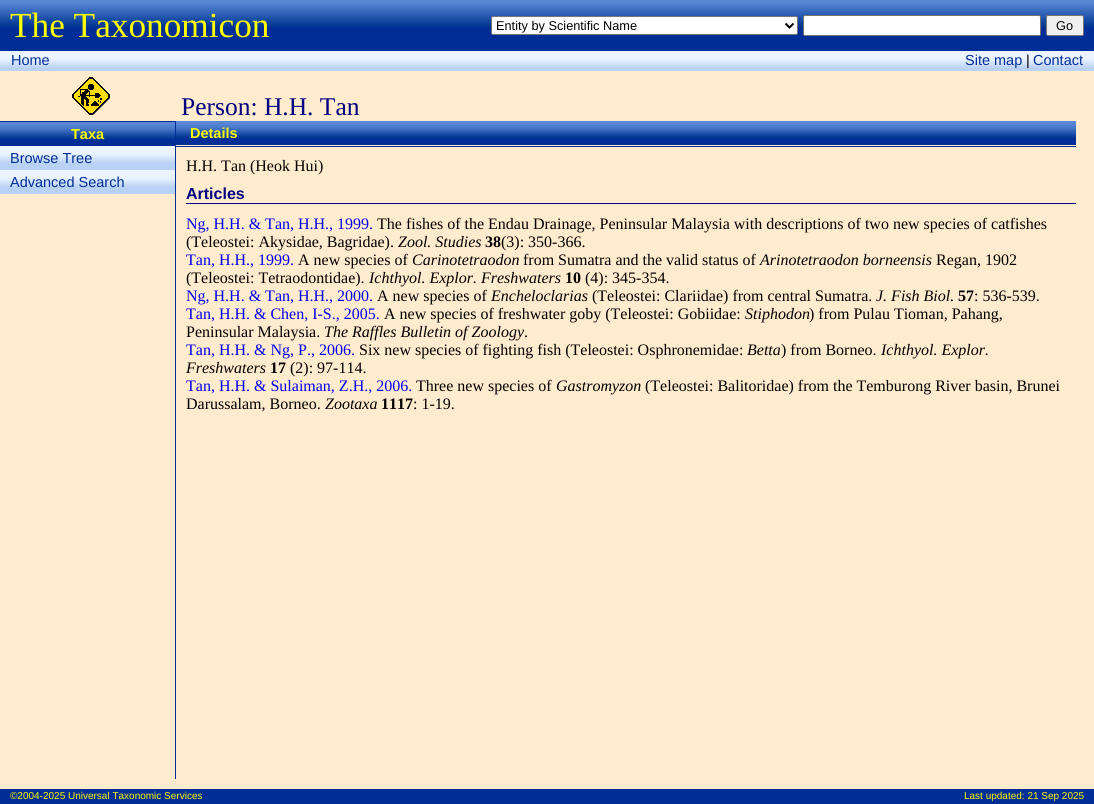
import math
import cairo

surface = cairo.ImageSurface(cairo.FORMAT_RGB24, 1094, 804)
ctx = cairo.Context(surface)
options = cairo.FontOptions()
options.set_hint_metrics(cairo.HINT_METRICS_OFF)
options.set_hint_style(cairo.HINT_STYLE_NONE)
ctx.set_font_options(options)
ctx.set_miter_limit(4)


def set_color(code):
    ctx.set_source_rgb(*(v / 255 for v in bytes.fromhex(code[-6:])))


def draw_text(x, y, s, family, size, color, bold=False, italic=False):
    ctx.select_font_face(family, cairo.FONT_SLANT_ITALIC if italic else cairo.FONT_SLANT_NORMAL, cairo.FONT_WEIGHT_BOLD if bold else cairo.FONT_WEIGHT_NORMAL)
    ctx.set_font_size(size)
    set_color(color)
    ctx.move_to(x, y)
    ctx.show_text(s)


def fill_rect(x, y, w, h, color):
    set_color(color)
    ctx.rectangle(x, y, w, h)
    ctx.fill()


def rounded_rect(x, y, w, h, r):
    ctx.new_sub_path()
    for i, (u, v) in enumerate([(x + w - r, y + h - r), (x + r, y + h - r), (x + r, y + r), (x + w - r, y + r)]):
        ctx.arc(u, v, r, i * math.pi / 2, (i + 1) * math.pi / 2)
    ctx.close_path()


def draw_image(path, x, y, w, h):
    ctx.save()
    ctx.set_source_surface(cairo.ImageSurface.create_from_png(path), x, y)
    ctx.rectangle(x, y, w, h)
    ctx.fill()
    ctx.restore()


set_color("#ffebcd")
ctx.paint()
fill_rect(0, 27, 1094, 24, "#002d96")
draw_image("assets/img1.png", 0, 0, 1094, 27)
draw_text(10, 37, "The Taxonomicon", "Liberation Serif", 35.25, "#ffff00")
set_color("#ffffff")
rounded_rect(491.5, 16.5, 306, 18, 1.5)
ctx.fill_preserve()
set_color("#767676")
ctx.set_line_width(1)
ctx.stroke()
ctx.new_path()
ctx.move_to(785.5, 23.5)
ctx.line_to(789.5, 27.5)
ctx.line_to(793.5, 23.5)
set_color("#000000")
ctx.set_line_width(2)
ctx.stroke()
draw_text(496, 30, "Entity by Scientific Name", "Liberation Sans", 12.75, "#000000")
set_color("#ffffff")
rounded_rect(803.5, 15.5, 237, 20, 1.5)
ctx.fill_preserve()
set_color("#767676")
ctx.set_line_width(1)
ctx.stroke()
set_color("#efefef")
rounded_rect(1046.5, 15.5, 37, 20, 1.5)
ctx.fill_preserve()
set_color("#767676")
ctx.stroke()
draw_text(1056, 30, "Go", "Liberation Sans", 12.75, "#000000")
fill_rect(0, 68, 1094, 3, "#b9d1f4")
draw_image("assets/img2.png", 0, 51, 1094, 17)
draw_text(11, 65, "Home", "Liberation Sans", 14.5, "#002d96")
draw_text(965, 65, "Site map", "Liberation Sans", 14.5, "#002d96")
draw_text(1026, 65, "|", "Liberation Sans", 14.5, "#000000")
draw_text(1033, 65, "Contact", "Liberation Sans", 14.5, "#002d96")
draw_image("assets/img3.png", 72, 77, 38, 38)
draw_text(181, 115, "Person: H.H. Tan", "Liberation Serif", 25.5, "#000080")
fill_rect(0, 121, 175, 1, "#002d96")
fill_rect(0, 139, 175, 7, "#002d96")
draw_image("assets/img4.png", 0, 122, 175, 17)
draw_text(71, 139, "Taxa", "Liberation Sans", 14.5, "#ffff00", bold=True)
fill_rect(0, 163, 175, 7, "#b9d1f4")
draw_image("assets/img5.png", 0, 146, 175, 17)
draw_text(10, 163, "Browse Tree", "Liberation Sans", 14.5, "#002d96")
fill_rect(0, 187, 175, 7, "#b9d1f4")
draw_image("assets/img5.png", 0, 170, 175, 17)
draw_text(10, 187, "Advanced Search", "Liberation Sans", 14.5, "#002d96")
fill_rect(175, 121, 1, 658, "#002d96")
fill_rect(176, 138, 900, 7, "#002d96")
draw_image("assets/img6.png", 176, 121, 900, 17)
draw_text(190, 138, "Details", "Liberation Sans", 14.5, "#ffff00", bold=True)
fill_rect(176, 146, 900, 1, "#002d96")
draw_text(186, 171, "H.H. Tan (Heok Hui)", "Liberation Serif", 16, "#000000")
fill_rect(186, 203, 890, 1, "#000080")
draw_text(186, 199, "Articles", "Liberation Sans", 16, "#000080", bold=True)
draw_text(186, 229, "Ng, H.H. & Tan, H.H., 1999.", "Liberation Serif", 16, "#0000ee")
draw_text(377, 229, "The fishes of the Endau Drainage, Peninsular Malaysia with descriptions of two new species of catfishes", "Liberation Serif", 16, "#000000")
draw_text(186, 247, "(Teleostei: Akysidae, Bagridae).", "Liberation Serif", 16, "#000000")
draw_text(398, 247, "Zool. Studies", "Liberation Serif", 16, "#000000", italic=True)
draw_text(485, 247, "38", "Liberation Serif", 16, "#000000", bold=True)
draw_text(501, 247, "(3): 350-366.", "Liberation Serif", 16, "#000000")
draw_text(186, 265, "Tan, H.H., 1999.", "Liberation Serif", 16, "#0000ee")
draw_text(298, 265, "A new species of", "Liberation Serif", 16, "#000000")
draw_text(412, 265, "Carinotetraodon", "Liberation Serif", 16, "#000000", italic=True)
draw_text(523, 265, "from Sumatra and the valid status of", "Liberation Serif", 16, "#000000")
draw_text(760, 265, "Arinotetraodon borneensis", "Liberation Serif", 16, "#000000", italic=True)
draw_text(936, 265, "Regan, 1902", "Liberation Serif", 16, "#000000")
draw_text(186, 283, "(Teleostei: Tetraodontidae).", "Liberation Serif", 16, "#000000")
draw_text(369, 283, "Ichthyol. Explor. Freshwaters", "Liberation Serif", 16, "#000000", italic=True)
draw_text(565, 283, "10", "Liberation Serif", 16, "#000000", bold=True)
draw_text(585, 283, "(4): 345-354.", "Liberation Serif", 16, "#000000")
draw_text(186, 301, "Ng, H.H. & Tan, H.H., 2000.", "Liberation Serif", 16, "#0000ee")
draw_text(377, 301, "A new species of", "Liberation Serif", 16, "#000000")
draw_text(491, 301, "Encheloclarias", "Liberation Serif", 16, "#000000", italic=True)
draw_text(592, 301, "(Teleostei: Clariidae) from central Sumatra.", "Liberation Serif", 16, "#000000")
draw_text(876, 301, "J. Fish Biol.", "Liberation Serif", 16, "#000000", italic=True)
draw_text(958, 301, "57", "Liberation Serif", 16, "#000000", bold=True)
draw_text(974, 301, ": 536-539.", "Liberation Serif", 16, "#000000")
draw_text(186, 319, "Tan, H.H. & Chen, I-S., 2005.", "Liberation Serif", 16, "#0000ee")
draw_text(384, 319, "A new species of freshwater goby (Teleostei: Gobiidae:", "Liberation Serif", 16, "#000000")
draw_text(745, 319, "Stiphodon", "Liberation Serif", 16, "#000000", italic=True)
draw_text(809, 319, ") from Pulau Tioman, Pahang,", "Liberation Serif", 16, "#000000")
draw_text(186, 337, "Peninsular Malaysia.", "Liberation Serif", 16, "#000000")
draw_text(324, 337, "The Raffles Bulletin of Zoology", "Liberation Serif", 16, "#000000", italic=True)
draw_text(524, 337, ".", "Liberation Serif", 16, "#000000")
draw_text(186, 355, "Tan, H.H. & Ng, P., 2006.", "Liberation Serif", 16, "#0000ee")
draw_text(359, 355, "Six new species of fighting fish (Teleostei: Osphronemidae:", "Liberation Serif", 16, "#000000")
draw_text(747, 355, "Betta", "Liberation Serif", 16, "#000000", italic=True)
draw_text(781, 355, ") from Borneo.", "Liberation Serif", 16, "#000000")
draw_text(881, 355, "Ichthyol. Explor.", "Liberation Serif", 16, "#000000", italic=True)
draw_text(186, 373, "Freshwaters", "Liberation Serif", 16, "#000000", italic=True)
draw_text(270, 373, "17", "Liberation Serif", 16, "#000000", bold=True)
draw_text(290, 373, "(2): 97-114.", "Liberation Serif", 16, "#000000")
draw_text(186, 391, "Tan, H.H. & Sulaiman, Z.H., 2006.", "Liberation Serif", 16, "#0000ee")
draw_text(416, 391, "Three new species of", "Liberation Serif", 16, "#000000")
draw_text(556, 391, "Gastromyzon", "Liberation Serif", 16, "#000000", italic=True)
draw_text(645, 391, "(Teleostei: Balitoridae) from the Temburong River basin, Brunei", "Liberation Serif", 16, "#000000")
draw_text(186, 409, "Darussalam, Borneo.", "Liberation Serif", 16, "#000000")
draw_text(325, 409, "Zootaxa", "Liberation Serif", 16, "#000000", italic=True)
draw_text(381, 409, "1117", "Liberation Serif", 16, "#000000", bold=True)
draw_text(413, 409, ": 1-19.", "Liberation Serif", 16, "#000000")
fill_rect(0, 789, 1094, 15, "#002d96")
draw_text(10, 799, "©2004-2025 Universal Taxonomic Services", "Liberation Sans", 10, "#ffff00")
draw_text(964, 799, "Last updated: 21 Sep 2025", "Liberation Sans", 10, "#ffff00")
surface.write_to_png("output.png")
